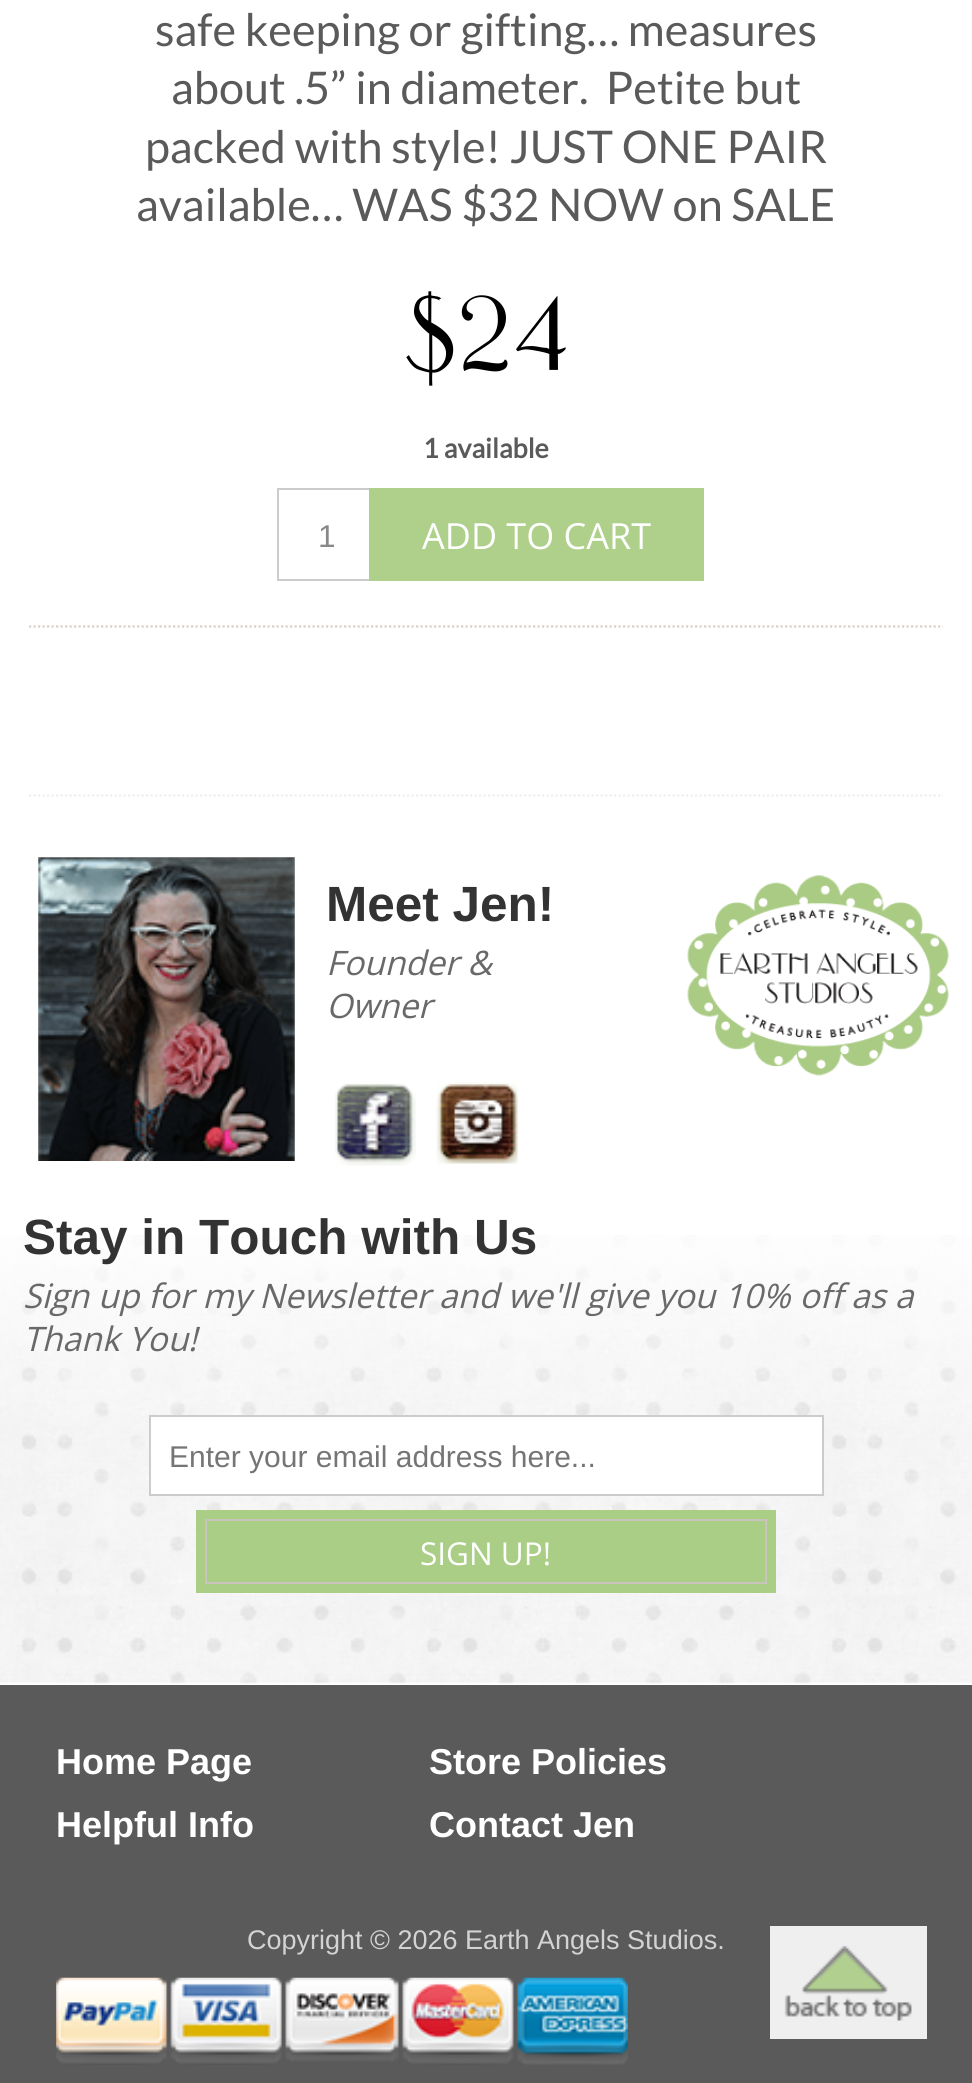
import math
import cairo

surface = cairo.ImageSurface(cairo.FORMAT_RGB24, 972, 2083)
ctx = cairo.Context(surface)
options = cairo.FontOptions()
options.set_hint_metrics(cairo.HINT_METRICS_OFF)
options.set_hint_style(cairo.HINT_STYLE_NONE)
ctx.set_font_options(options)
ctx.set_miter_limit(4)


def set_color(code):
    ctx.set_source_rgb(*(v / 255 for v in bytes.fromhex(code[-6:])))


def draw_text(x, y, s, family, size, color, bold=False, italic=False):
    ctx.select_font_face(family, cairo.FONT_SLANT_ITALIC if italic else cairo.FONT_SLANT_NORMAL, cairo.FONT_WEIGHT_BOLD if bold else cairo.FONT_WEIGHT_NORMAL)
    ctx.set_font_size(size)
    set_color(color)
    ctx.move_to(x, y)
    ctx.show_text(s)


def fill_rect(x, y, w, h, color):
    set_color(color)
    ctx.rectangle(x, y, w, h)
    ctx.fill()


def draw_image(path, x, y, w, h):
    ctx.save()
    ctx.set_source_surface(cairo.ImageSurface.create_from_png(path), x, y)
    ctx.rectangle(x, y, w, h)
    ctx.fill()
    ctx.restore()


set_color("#ffffff")
ctx.paint()
draw_image("assets/img1.png", 0, 1235, 972, 449)
draw_text(155, 46, "safe keeping or gifting… measures", "Lato", 45, "#5a5a5a")
draw_text(171, 104, "about .5” in diameter.  Petite but", "Lato", 45, "#5a5a5a")
draw_text(145, 163, "packed with style! JUST ONE PAIR", "Lato", 45, "#5a5a5a")
draw_text(136, 221, "available… WAS $32 NOW on SALE", "Lato", 45, "#5a5a5a")
draw_text(402, 370, "$24", "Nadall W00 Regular", 108, "#000000")
draw_text(423, 458, "1 available", "Lato", 27, "#5a5a5a", bold=True)
ctx.new_path()
ctx.move_to(29, 626.5)
ctx.line_to(943, 626.5)
set_color("#d8cfc8")
ctx.set_line_width(2.2)
ctx.set_dash([2.25, 2.25])
ctx.stroke()
ctx.rectangle(278, 489, 99, 91)
set_color("#cccccc")
ctx.set_line_width(2)
ctx.set_dash([])
ctx.stroke()
draw_text(318, 547, "1", "Liberation Sans", 31.5, "#888888")
fill_rect(378, 497, 317, 75, "#aed08b")
ctx.rectangle(373.5, 492.5, 326, 84)
ctx.set_line_width(9)
ctx.stroke()
draw_text(422, 549, "ADD TO CART", "Open Sans", 36, "#ffffff")
ctx.new_path()
ctx.move_to(29, 795.5)
ctx.line_to(943, 795.5)
set_color("#eeeeee")
ctx.set_line_width(2.2)
ctx.set_dash([2.25, 2.25])
ctx.stroke()
draw_image("assets/img2.png", 38, 857, 257, 304)
draw_text(326, 921, "Meet Jen!", "Liberation Sans", 49.5, "#333333", bold=True)
draw_text(326, 975, "Founder &", "Open Sans", 33.75, "#696969", italic=True)
draw_text(326, 1018, "Owner", "Open Sans", 33.75, "#696969", italic=True)
draw_image("assets/img3.png", 335, 1084, 81, 82)
draw_image("assets/img4.png", 436, 1082, 83, 82)
draw_image("assets/img5.png", 687, 875, 262, 201)
draw_text(23, 1254, "Stay in Touch with Us", "Liberation Sans", 49.5, "#333333", bold=True)
draw_text(23, 1308, "Sign up for my Newsletter and we'll give you 10% off as a", "Open Sans", 33.75, "#696969", italic=True)
draw_text(23, 1351, "Thank You!", "Open Sans", 33.75, "#696969", italic=True)
set_color("#ffffff")
ctx.rectangle(150, 1416, 673, 79)
ctx.fill_preserve()
set_color("#cccccc")
ctx.set_line_width(2)
ctx.set_dash([])
ctx.stroke()
draw_text(169, 1467, "Enter your email address here...", "Liberation Sans", 30, "#757575")
set_color("#aace85")
ctx.rectangle(206, 1520, 560, 63)
ctx.fill_preserve()
set_color("#c9c3be")
ctx.stroke()
ctx.rectangle(200.5, 1514.5, 571, 74)
set_color("#aace85")
ctx.set_line_width(9)
ctx.stroke()
draw_text(420, 1565, "SIGN UP!", "Open Sans", 31.5, "#ffffff")
fill_rect(0, 1685, 972, 398, "#5a5a5a")
draw_text(56, 1774, "Home Page", "Liberation Sans", 36, "#ffffff", bold=True)
draw_text(429, 1774, "Store Policies", "Liberation Sans", 36, "#ffffff", bold=True)
draw_text(56, 1837, "Helpful Info", "Liberation Sans", 36, "#ffffff", bold=True)
draw_text(429, 1837, "Contact Jen", "Liberation Sans", 36, "#ffffff", bold=True)
draw_text(247, 1949, "Copyright © 2026 Earth Angels Studios.", "Liberation Sans", 27, "#d3d3d3")
draw_image("assets/img6.png", 56, 1977, 572, 88)
fill_rect(770, 1926, 157, 113, "#efefef")
draw_image("assets/img7.png", 784, 1946, 128, 75)
surface.write_to_png("output.png")
